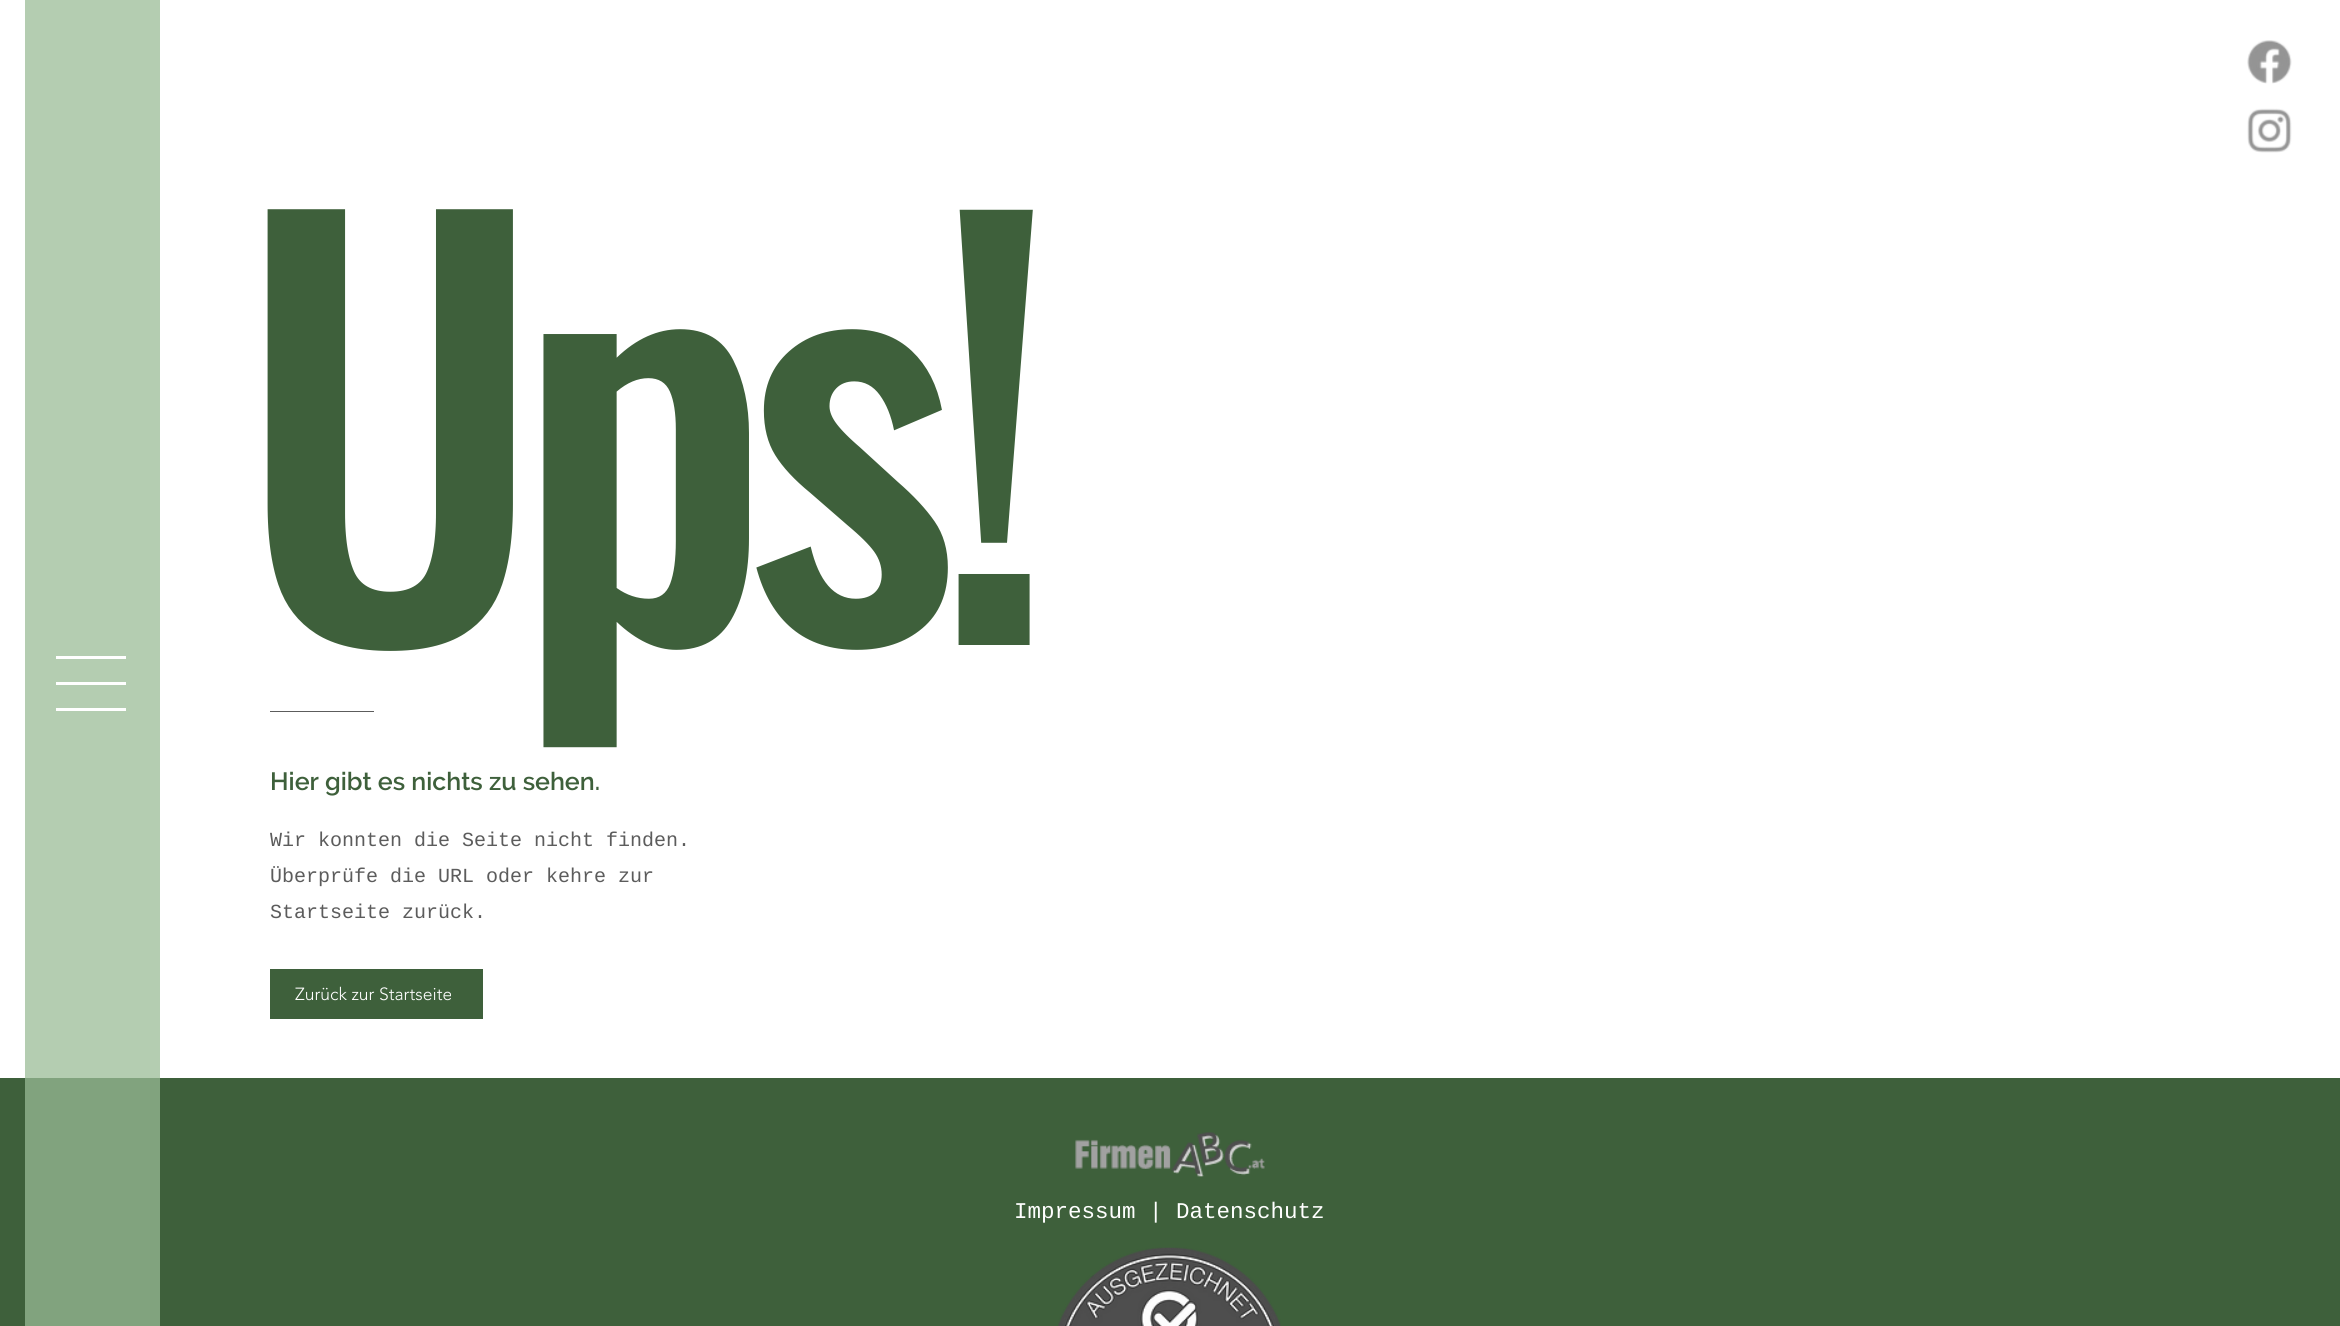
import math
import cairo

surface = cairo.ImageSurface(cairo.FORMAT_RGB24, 2340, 1326)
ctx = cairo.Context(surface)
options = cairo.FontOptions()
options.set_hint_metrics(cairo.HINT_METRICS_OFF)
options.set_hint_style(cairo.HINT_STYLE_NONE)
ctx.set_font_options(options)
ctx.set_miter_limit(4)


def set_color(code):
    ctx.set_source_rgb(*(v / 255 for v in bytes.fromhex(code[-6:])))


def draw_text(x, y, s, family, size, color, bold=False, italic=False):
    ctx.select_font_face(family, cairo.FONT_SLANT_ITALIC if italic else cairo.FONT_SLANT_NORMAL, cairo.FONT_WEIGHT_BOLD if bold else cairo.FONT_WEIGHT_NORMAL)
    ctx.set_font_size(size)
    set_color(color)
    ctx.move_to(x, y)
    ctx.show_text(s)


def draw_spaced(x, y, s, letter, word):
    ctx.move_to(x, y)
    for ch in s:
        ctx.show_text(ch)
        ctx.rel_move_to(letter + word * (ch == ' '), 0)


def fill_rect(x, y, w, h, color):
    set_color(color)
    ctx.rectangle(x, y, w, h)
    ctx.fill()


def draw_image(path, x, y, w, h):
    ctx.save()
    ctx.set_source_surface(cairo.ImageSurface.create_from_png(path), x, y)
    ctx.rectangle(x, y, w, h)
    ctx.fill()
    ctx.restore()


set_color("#ffffff")
ctx.paint()
fill_rect(25, 0, 135, 1078, "#b4cdb1")
draw_image("assets/img1.png", 2247, 40, 45, 44)
draw_image("assets/img2.png", 2247, 108, 45, 45)
set_color("#ffffff")
ctx.new_path()
ctx.move_to(126, 659)
ctx.line_to(56, 659)
ctx.line_to(56, 656)
ctx.line_to(126, 656)
ctx.close_path()
ctx.move_to(126, 682)
ctx.line_to(56, 682)
ctx.line_to(56, 685)
ctx.line_to(126, 685)
ctx.close_path()
ctx.move_to(126, 708)
ctx.line_to(56, 708)
ctx.line_to(56, 711)
ctx.line_to(126, 711)
ctx.close_path()
ctx.fill()
ctx.select_font_face("Oswald Medium")
ctx.set_font_size(538)
set_color("#3e603b")
draw_spaced(238, 645, "Ups!", -27, 0)
fill_rect(270, 711, 104, 1, "#5c5c5c")
draw_text(270, 790, "Hier gibt es nichts zu sehen.", "Raleway SemiBold", 25, "#3e603b")
draw_text(270, 846, "Wir konnten die Seite nicht finden.", "Liberation Mono", 20, "#5c5c5c")
draw_text(270, 882, "Überprüfe die URL oder kehre zur", "Liberation Mono", 20, "#5c5c5c")
draw_text(270, 918, "Startseite zurück.", "Liberation Mono", 20, "#5c5c5c")
fill_rect(270, 969, 213, 50, "#3e603b")
draw_text(295, 1000, "Zurück zur Startseite", "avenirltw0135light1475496 Light", 17.5, "#ffffff")
fill_rect(0, 1078, 2340, 248, "#3e603b")
fill_rect(25, 1078, 135, 248, "#81a37e")
draw_image("assets/img3.png", 1075, 1132, 190, 45)
draw_text(1014, 1218, "Impressum | Datenschutz", "Liberation Mono", 22.5, "#ffffff")
draw_image("assets/img4.png", 1058, 1247, 223, 79)
surface.write_to_png("output.png")
